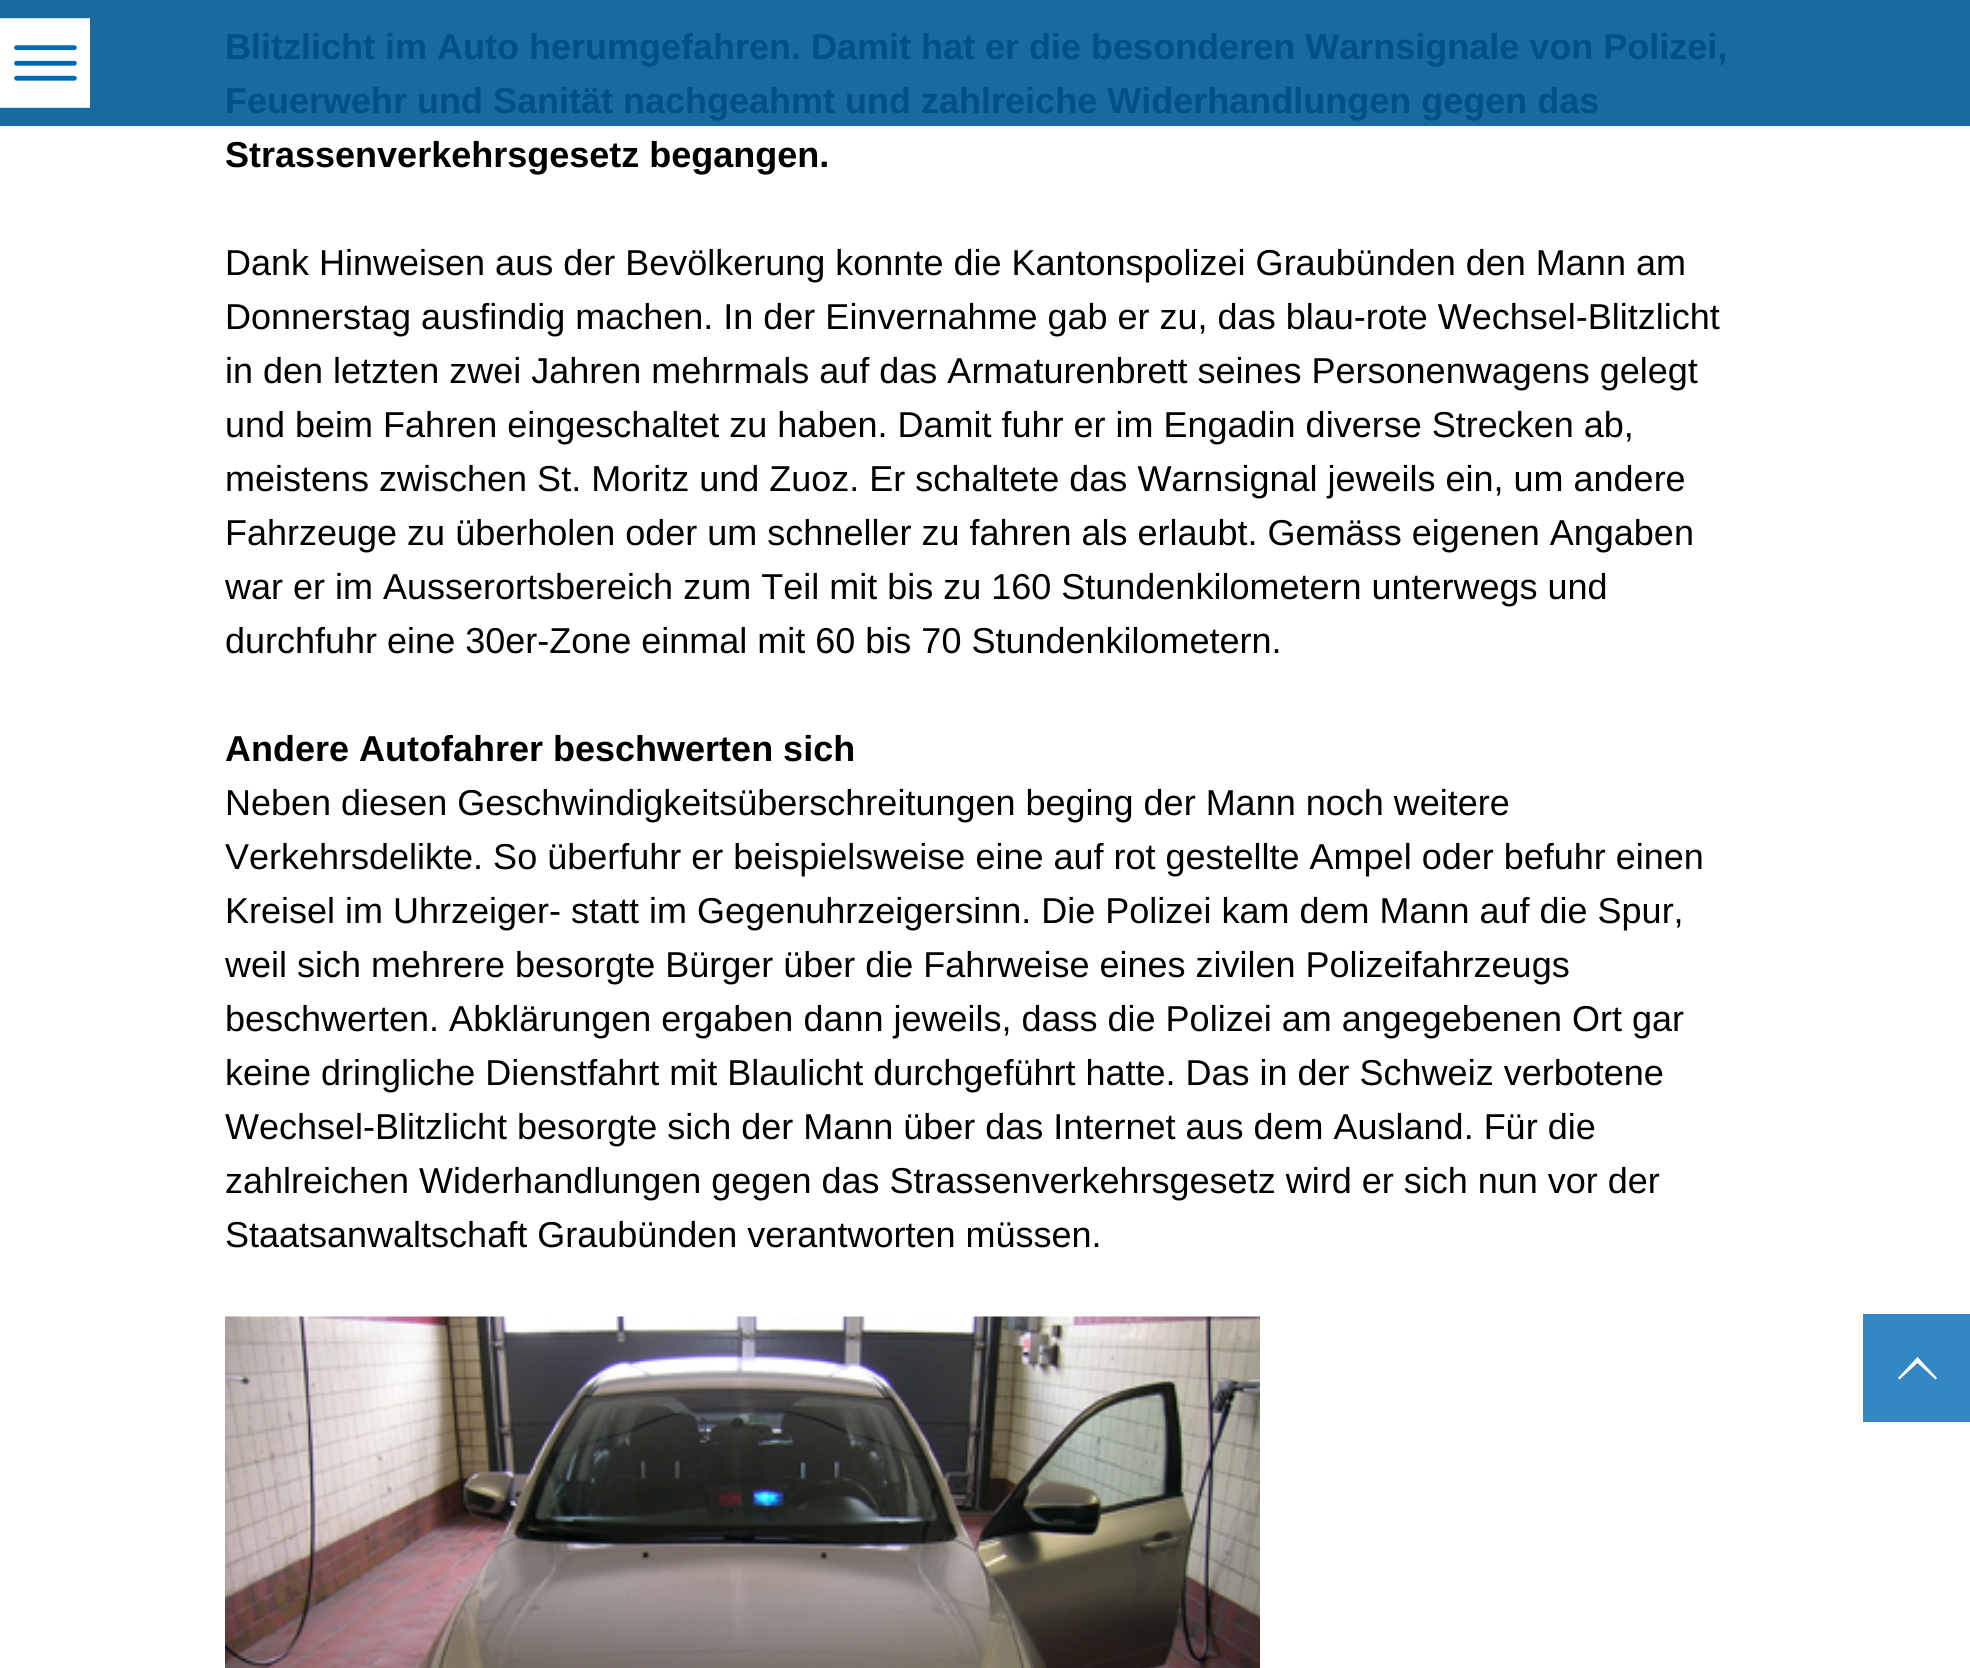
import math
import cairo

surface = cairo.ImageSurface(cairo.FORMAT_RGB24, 1970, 1668)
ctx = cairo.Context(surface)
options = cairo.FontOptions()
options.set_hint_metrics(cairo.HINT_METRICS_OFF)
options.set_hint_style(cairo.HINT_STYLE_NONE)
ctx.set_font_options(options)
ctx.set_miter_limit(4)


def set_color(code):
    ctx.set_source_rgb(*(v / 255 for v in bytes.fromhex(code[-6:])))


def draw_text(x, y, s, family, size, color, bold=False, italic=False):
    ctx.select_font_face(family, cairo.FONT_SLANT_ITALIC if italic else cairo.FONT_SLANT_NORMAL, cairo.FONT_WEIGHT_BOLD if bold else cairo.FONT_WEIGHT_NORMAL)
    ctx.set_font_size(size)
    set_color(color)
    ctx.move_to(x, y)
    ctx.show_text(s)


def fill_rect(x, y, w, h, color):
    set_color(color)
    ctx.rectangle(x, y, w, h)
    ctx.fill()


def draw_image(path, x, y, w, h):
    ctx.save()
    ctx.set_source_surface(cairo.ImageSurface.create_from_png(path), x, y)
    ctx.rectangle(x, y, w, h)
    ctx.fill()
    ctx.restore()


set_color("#ffffff")
ctx.paint()
fill_rect(0, 0, 1970, 126, "#196aa1")
fill_rect(0, 18, 90, 90, "#0069b4")
draw_image("assets/img1.png", 0, 18, 90, 90)
draw_text(225, 59, "Blitzlicht im Auto herumgefahren. Damit hat er die besonderen Warnsignale von Polizei,", "Liberation Sans", 36, "#005088", bold=True)
draw_text(225, 113, "Feuerwehr und Sanität nachgeahmt und zahlreiche Widerhandlungen gegen das", "Liberation Sans", 36, "#005088", bold=True)
draw_text(225, 167, "Strassenverkehrsgesetz begangen.", "Liberation Sans", 36, "#000000", bold=True)
draw_text(225, 275, "Dank Hinweisen aus der Bevölkerung konnte die Kantonspolizei Graubünden den Mann am", "Liberation Sans", 36, "#000000")
draw_text(225, 329, "Donnerstag ausfindig machen. In der Einvernahme gab er zu, das blau-rote Wechsel-Blitzlicht", "Liberation Sans", 36, "#000000")
draw_text(225, 383, "in den letzten zwei Jahren mehrmals auf das Armaturenbrett seines Personenwagens gelegt", "Liberation Sans", 36, "#000000")
draw_text(225, 437, "und beim Fahren eingeschaltet zu haben. Damit fuhr er im Engadin diverse Strecken ab,", "Liberation Sans", 36, "#000000")
draw_text(225, 491, "meistens zwischen St. Moritz und Zuoz. Er schaltete das Warnsignal jeweils ein, um andere", "Liberation Sans", 36, "#000000")
draw_text(225, 545, "Fahrzeuge zu überholen oder um schneller zu fahren als erlaubt. Gemäss eigenen Angaben", "Liberation Sans", 36, "#000000")
draw_text(225, 599, "war er im Ausserortsbereich zum Teil mit bis zu 160 Stundenkilometern unterwegs und", "Liberation Sans", 36, "#000000")
draw_text(225, 653, "durchfuhr eine 30er-Zone einmal mit 60 bis 70 Stundenkilometern.", "Liberation Sans", 36, "#000000")
draw_text(225, 761, "Andere Autofahrer beschwerten sich", "Liberation Sans", 36, "#000000", bold=True)
draw_text(225, 815, "Neben diesen Geschwindigkeitsüberschreitungen beging der Mann noch weitere", "Liberation Sans", 36, "#000000")
draw_text(225, 869, "Verkehrsdelikte. So überfuhr er beispielsweise eine auf rot gestellte Ampel oder befuhr einen", "Liberation Sans", 36, "#000000")
draw_text(225, 923, "Kreisel im Uhrzeiger- statt im Gegenuhrzeigersinn. Die Polizei kam dem Mann auf die Spur,", "Liberation Sans", 36, "#000000")
draw_text(225, 977, "weil sich mehrere besorgte Bürger über die Fahrweise eines zivilen Polizeifahrzeugs", "Liberation Sans", 36, "#000000")
draw_text(225, 1031, "beschwerten. Abklärungen ergaben dann jeweils, dass die Polizei am angegebenen Ort gar", "Liberation Sans", 36, "#000000")
draw_text(225, 1085, "keine dringliche Dienstfahrt mit Blaulicht durchgeführt hatte. Das in der Schweiz verbotene", "Liberation Sans", 36, "#000000")
draw_text(225, 1139, "Wechsel-Blitzlicht besorgte sich der Mann über das Internet aus dem Ausland. Für die", "Liberation Sans", 36, "#000000")
draw_text(225, 1193, "zahlreichen Widerhandlungen gegen das Strassenverkehrsgesetz wird er sich nun vor der", "Liberation Sans", 36, "#000000")
draw_text(225, 1247, "Staatsanwaltschaft Graubünden verantworten müssen.", "Liberation Sans", 36, "#000000")
draw_image("assets/img2.png", 225, 1316, 1035, 352)
fill_rect(1863, 1314, 107, 108, "#3387c3")
set_color("#ffffff")
ctx.new_path()
ctx.move_to(1917.5, 1357)
ctx.line_to(1937, 1378)
ctx.line_to(1935.5, 1379.5)
ctx.line_to(1917.5, 1363)
ctx.line_to(1899.5, 1379.5)
ctx.line_to(1898, 1378)
ctx.close_path()
ctx.fill()
surface.write_to_png("output.png")
